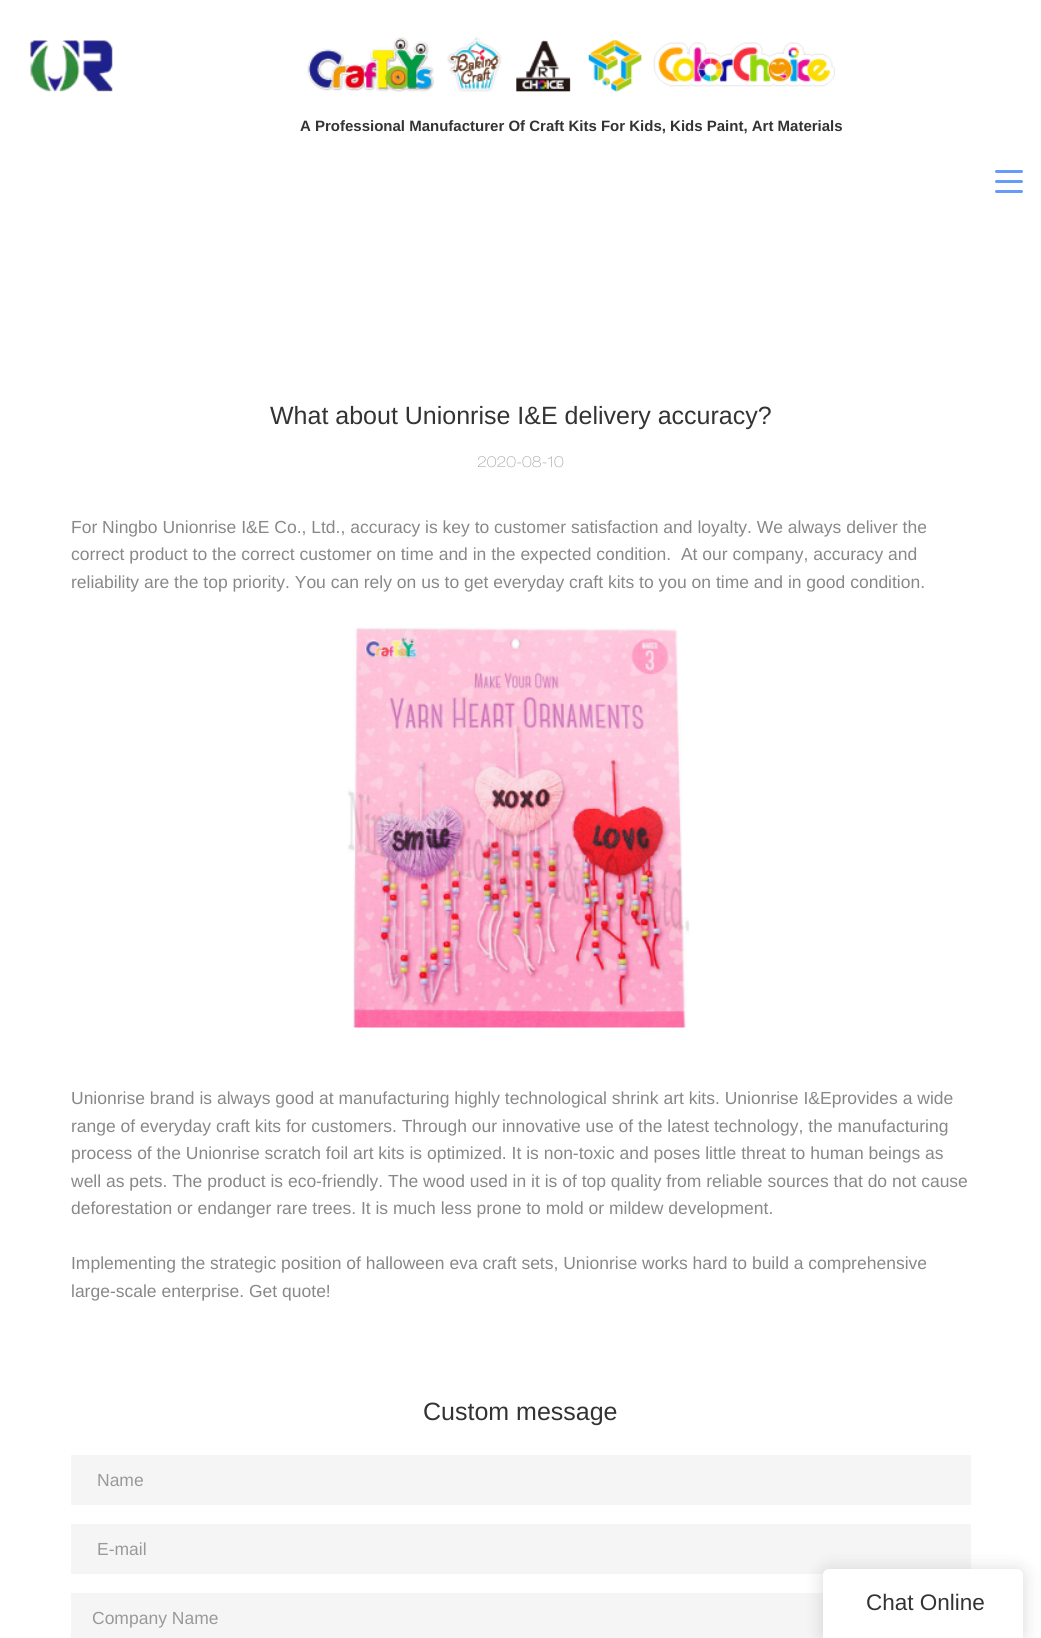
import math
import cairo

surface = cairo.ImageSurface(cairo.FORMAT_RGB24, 1041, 1638)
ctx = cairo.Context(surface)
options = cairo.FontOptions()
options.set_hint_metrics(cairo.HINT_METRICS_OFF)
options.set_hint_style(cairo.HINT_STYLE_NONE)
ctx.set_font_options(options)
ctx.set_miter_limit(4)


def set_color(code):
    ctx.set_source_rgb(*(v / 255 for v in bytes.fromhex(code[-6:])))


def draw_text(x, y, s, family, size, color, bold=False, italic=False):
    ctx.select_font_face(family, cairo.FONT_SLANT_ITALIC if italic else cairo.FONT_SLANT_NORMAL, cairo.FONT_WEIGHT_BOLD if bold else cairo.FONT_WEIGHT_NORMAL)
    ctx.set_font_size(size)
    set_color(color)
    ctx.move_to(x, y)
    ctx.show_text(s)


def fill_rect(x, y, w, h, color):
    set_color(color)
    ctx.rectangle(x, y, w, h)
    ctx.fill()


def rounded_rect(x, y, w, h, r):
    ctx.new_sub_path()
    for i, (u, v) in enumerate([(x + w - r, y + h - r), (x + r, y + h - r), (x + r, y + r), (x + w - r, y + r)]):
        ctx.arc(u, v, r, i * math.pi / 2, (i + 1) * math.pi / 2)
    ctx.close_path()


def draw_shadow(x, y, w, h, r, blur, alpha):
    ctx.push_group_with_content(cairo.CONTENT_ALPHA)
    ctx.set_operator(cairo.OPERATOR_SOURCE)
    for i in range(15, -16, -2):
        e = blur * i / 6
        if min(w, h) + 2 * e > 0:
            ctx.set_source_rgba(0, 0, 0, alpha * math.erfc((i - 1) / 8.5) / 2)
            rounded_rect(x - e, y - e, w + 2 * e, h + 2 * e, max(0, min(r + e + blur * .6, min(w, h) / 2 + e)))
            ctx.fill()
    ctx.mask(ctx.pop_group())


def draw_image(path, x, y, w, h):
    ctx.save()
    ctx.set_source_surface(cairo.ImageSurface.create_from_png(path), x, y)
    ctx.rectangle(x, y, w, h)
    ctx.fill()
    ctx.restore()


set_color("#ffffff")
ctx.paint()
draw_image("assets/img1.png", 30, 40, 83, 52)
draw_image("assets/img2.png", 307, 37, 528, 55)
draw_text(300, 131, "A Professional Manufacturer Of Craft Kits For Kids, Kids Paint, Art Materials", "Liberation Sans", 15, "#333333", bold=True)
set_color("#679bf8")
rounded_rect(995, 170, 28, 3, 1.5)
ctx.fill()
rounded_rect(995, 180, 28, 3, 1.5)
ctx.fill()
rounded_rect(995, 190, 28, 3, 1.5)
ctx.fill()
draw_text(270, 424, "What about Unionrise I&E delivery accuracy?", "Liberation Sans", 25, "#333333")
draw_text(477, 467, "2020-08-10", "Helvetica Neue ExtraLight", 15, "#aaaaaa")
draw_text(71, 533, "For Ningbo Unionrise I&E Co., Ltd., accuracy is key to customer satisfaction and loyalty. We always deliver the", "Liberation Sans", 17.5, "#888888")
draw_text(71, 560, "correct product to the correct customer on time and in the expected condition.  At our company, accuracy and", "Liberation Sans", 17.5, "#888888")
draw_text(71, 588, "reliability are the top priority. You can rely on us to get everyday craft kits to you on time and in good condition.", "Liberation Sans", 17.5, "#888888")
draw_image("assets/img3.png", 347, 627, 343, 401)
draw_text(71, 1104, "Unionrise brand is always good at manufacturing highly technological shrink art kits. Unionrise I&Eprovides a wide", "Liberation Sans", 17.5, "#888888")
draw_text(71, 1132, "range of everyday craft kits for customers. Through our innovative use of the latest technology, the manufacturing", "Liberation Sans", 17.5, "#888888")
draw_text(71, 1159, "process of the Unionrise scratch foil art kits is optimized. It is non-toxic and poses little threat to human beings as", "Liberation Sans", 17.5, "#888888")
draw_text(71, 1187, "well as pets. The product is eco-friendly. The wood used in it is of top quality from reliable sources that do not cause", "Liberation Sans", 17.5, "#888888")
draw_text(71, 1214, "deforestation or endanger rare trees. It is much less prone to mold or mildew development.", "Liberation Sans", 17.5, "#888888")
draw_text(71, 1269, "Implementing the strategic position of halloween eva craft sets, Unionrise works hard to build a comprehensive", "Liberation Sans", 17.5, "#888888")
draw_text(71, 1297, "large-scale enterprise. Get quote!", "Liberation Sans", 17.5, "#888888")
draw_text(423, 1420, "Custom message", "Liberation Sans", 25, "#333333")
fill_rect(71, 1455, 900, 50, "#f5f5f5")
draw_text(97, 1486, "Name", "Liberation Sans", 17.5, "#999999")
fill_rect(71, 1524, 900, 50, "#f5f5f5")
draw_text(97, 1555, "E-mail", "Liberation Sans", 17.5, "#999999")
fill_rect(71, 1593, 752, 45, "#f5f5f5")
ctx.save()
ctx.rectangle(93, 1608, 857, 20)
ctx.clip()
draw_text(92, 1624, "Company Name", "Liberation Sans", 17.5, "#999999")
ctx.restore()
set_color("#000000")
draw_shadow(823, 1570, 200, 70, 6, 9.5, 0.15)
set_color("#ffffff")
ctx.new_path()
ctx.move_to(829, 1569)
ctx.line_to(1017, 1569)
ctx.curve_to(1020.5, 1569, 1023, 1571.5, 1023, 1575)
ctx.line_to(1023, 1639)
ctx.line_to(823, 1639)
ctx.line_to(823, 1575)
ctx.curve_to(823, 1571.5, 825.5, 1569, 829, 1569)
ctx.close_path()
ctx.fill()
draw_text(866, 1610, "Chat Online", "Liberation Sans", 22.5, "#333333")
surface.write_to_png("output.png")
